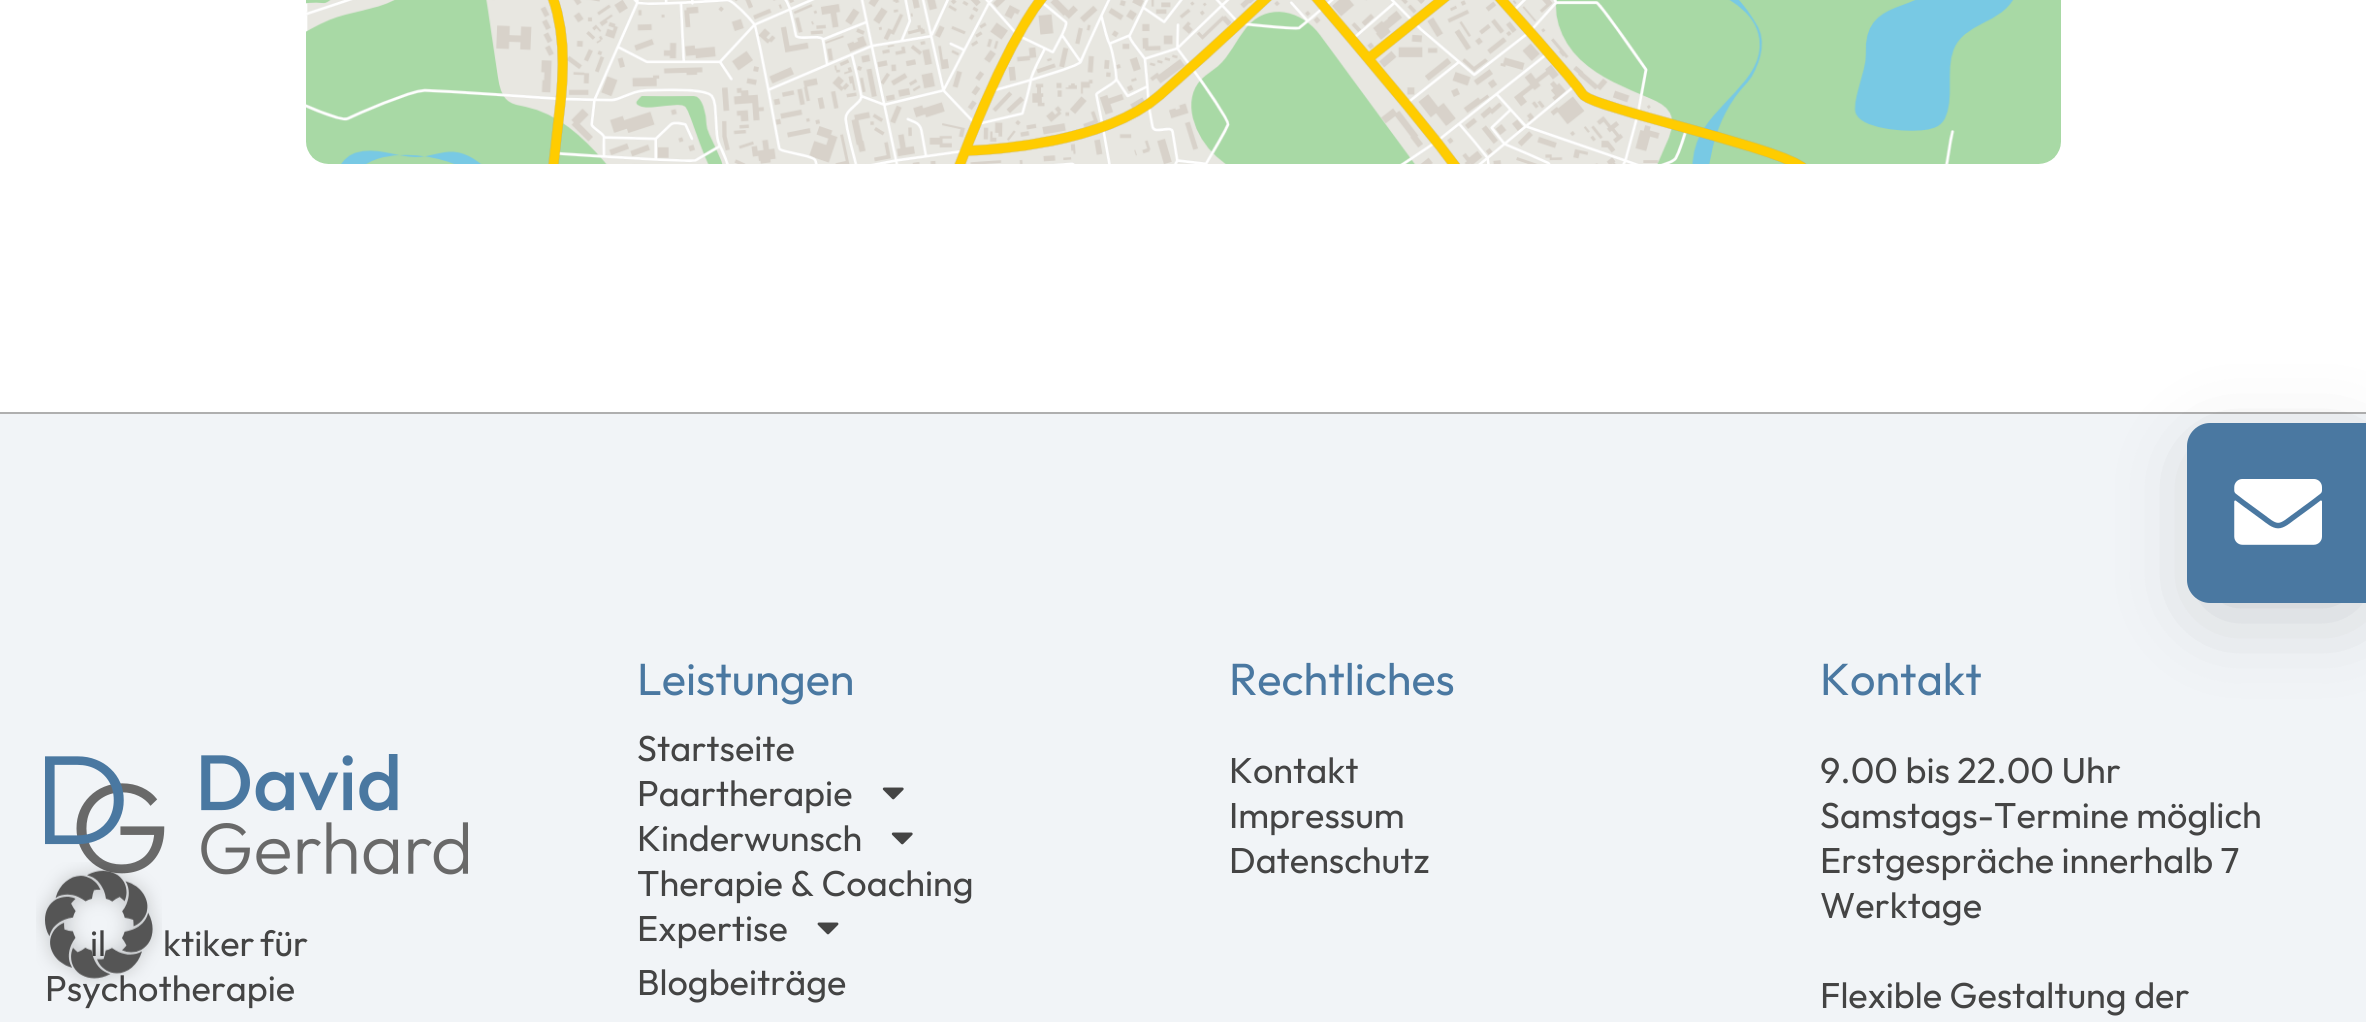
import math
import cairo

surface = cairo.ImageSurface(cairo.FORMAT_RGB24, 2366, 1022)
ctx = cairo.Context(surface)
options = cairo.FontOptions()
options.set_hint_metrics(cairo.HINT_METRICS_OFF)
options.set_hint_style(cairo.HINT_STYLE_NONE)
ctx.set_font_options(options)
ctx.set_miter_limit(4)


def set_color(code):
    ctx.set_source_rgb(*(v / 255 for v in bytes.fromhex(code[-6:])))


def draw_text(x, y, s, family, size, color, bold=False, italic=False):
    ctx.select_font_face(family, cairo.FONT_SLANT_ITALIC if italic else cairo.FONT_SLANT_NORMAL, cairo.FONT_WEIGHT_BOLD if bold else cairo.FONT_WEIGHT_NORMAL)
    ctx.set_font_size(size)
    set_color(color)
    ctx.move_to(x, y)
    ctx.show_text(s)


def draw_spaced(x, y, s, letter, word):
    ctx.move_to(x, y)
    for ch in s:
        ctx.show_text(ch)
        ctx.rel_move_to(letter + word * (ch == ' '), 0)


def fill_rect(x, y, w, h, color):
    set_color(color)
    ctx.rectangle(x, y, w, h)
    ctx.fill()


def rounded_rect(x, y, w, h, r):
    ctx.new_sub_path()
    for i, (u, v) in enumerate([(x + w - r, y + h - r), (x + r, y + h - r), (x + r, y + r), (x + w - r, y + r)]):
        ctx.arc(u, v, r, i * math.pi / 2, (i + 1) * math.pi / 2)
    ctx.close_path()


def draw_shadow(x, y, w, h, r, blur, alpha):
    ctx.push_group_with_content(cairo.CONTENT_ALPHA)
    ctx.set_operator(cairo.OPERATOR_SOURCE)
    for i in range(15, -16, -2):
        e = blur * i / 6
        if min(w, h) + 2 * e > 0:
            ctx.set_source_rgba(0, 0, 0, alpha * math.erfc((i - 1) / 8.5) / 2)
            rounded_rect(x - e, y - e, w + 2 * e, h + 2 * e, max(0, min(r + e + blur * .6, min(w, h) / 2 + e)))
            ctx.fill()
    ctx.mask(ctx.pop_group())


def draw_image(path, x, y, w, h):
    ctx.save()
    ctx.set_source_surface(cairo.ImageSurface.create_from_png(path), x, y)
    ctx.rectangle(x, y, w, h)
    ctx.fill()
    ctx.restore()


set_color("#ffffff")
ctx.paint()
draw_image("assets/img1.png", 306, 0, 1755, 164)
fill_rect(0, 414, 2366, 608, "#f1f4f7")
fill_rect(0, 412, 2366, 2, "#afafaf")
set_color("#000000")
draw_shadow(2212, 461, 139, 140, 2, 45, 0.2)
set_color("#4a78a1")
ctx.new_path()
ctx.move_to(2210, 423)
ctx.line_to(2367, 423)
ctx.line_to(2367, 603)
ctx.line_to(2210, 603)
ctx.curve_to(2197.5, 603, 2187, 592.5, 2187, 580)
ctx.line_to(2187, 446)
ctx.curve_to(2187, 433.5, 2197.5, 423, 2210, 423)
ctx.close_path()
ctx.fill()
draw_image("assets/img2.png", 2234, 479, 88, 66)
draw_image("assets/img3.png", 45, 754, 423, 121)
ctx.select_font_face("Outfit")
ctx.set_font_size(36)
set_color("#444444")
draw_spaced(90, 956, "il", 0, -2)
draw_spaced(163, 956, "ktiker für", 0, -2)
draw_text(45, 1001, "Psychotherapie", "Outfit", 36, "#444444")
draw_text(637, 695, "Leistungen", "Outfit", 45, "#4a78a1")
draw_text(637, 761, "Startseite", "Outfit", 36, "#444444")
draw_text(637, 806, "Paartherapie", "Outfit", 36, "#444444")
draw_image("assets/img4.png", 882, 787, 22, 13)
draw_text(637, 851, "Kinderwunsch", "Outfit", 36, "#444444")
draw_image("assets/img4.png", 891, 832, 22, 13)
draw_text(637, 896, "Therapie & Coaching", "Outfit", 36, "#444444")
draw_text(637, 941, "Expertise", "Outfit", 36, "#444444")
draw_image("assets/img5.png", 817, 922, 22, 13)
draw_text(637, 995, "Blogbeiträge", "Outfit", 36, "#444444")
draw_text(1229, 695, "Rechtliches", "Outfit", 45, "#4a78a1")
draw_text(1229, 783, "Kontakt", "Outfit", 36, "#444444")
draw_text(1229, 828, "Impressum", "Outfit", 36, "#444444")
draw_text(1229, 873, "Datenschutz", "Outfit", 36, "#444444")
draw_text(1820, 695, "Kontakt", "Outfit", 45, "#4a78a1")
draw_text(1820, 783, "9.00 bis 22.00 Uhr", "Outfit", 36, "#444444")
draw_text(1820, 828, "Samstags-Termine möglich", "Outfit", 36, "#444444")
draw_text(1820, 873, "Erstgespräche innerhalb 7", "Outfit", 36, "#444444")
draw_text(1820, 918, "Werktage", "Outfit", 36, "#444444")
draw_text(1820, 1008, "Flexible Gestaltung der", "Outfit", 36, "#444444")
draw_image("assets/img6.png", 36, 862, 126, 125)
surface.write_to_png("output.png")
